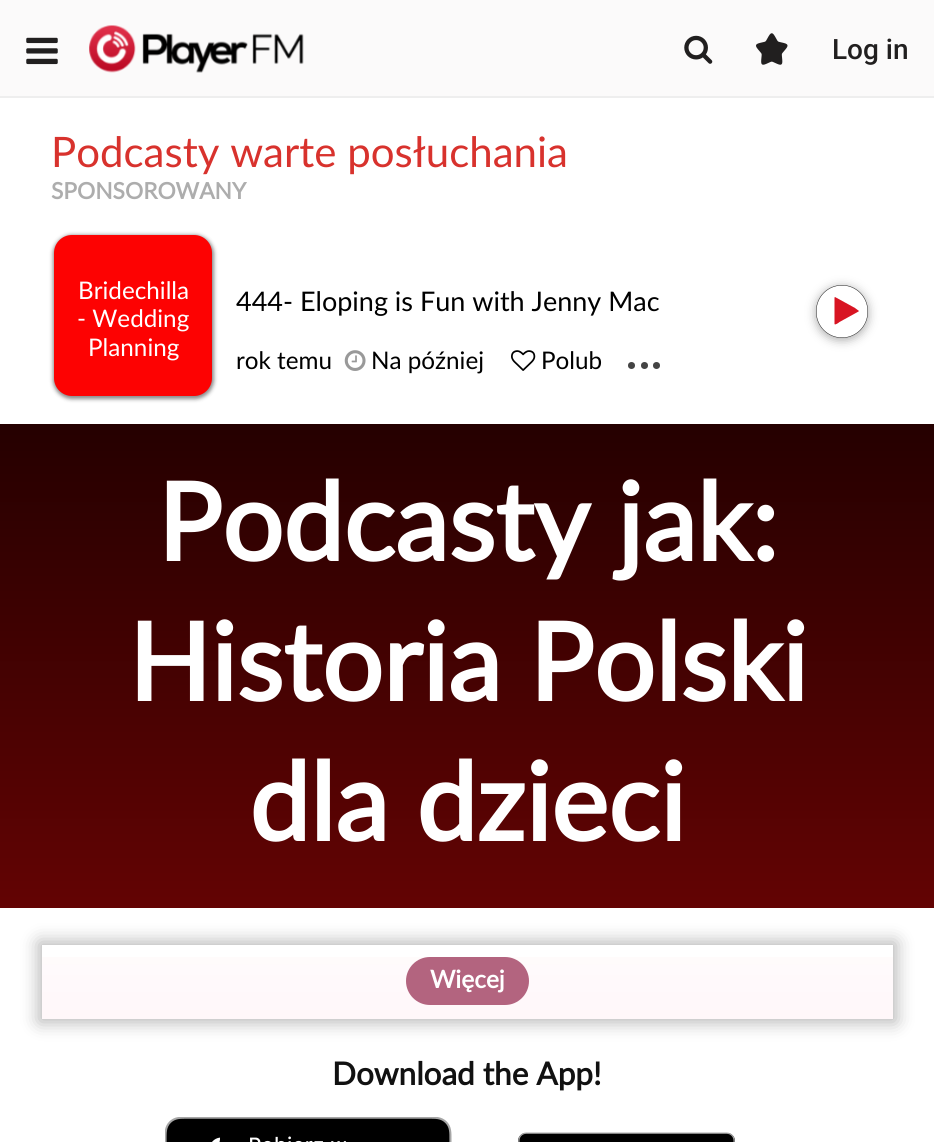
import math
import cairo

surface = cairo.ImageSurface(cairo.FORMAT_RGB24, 934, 1142)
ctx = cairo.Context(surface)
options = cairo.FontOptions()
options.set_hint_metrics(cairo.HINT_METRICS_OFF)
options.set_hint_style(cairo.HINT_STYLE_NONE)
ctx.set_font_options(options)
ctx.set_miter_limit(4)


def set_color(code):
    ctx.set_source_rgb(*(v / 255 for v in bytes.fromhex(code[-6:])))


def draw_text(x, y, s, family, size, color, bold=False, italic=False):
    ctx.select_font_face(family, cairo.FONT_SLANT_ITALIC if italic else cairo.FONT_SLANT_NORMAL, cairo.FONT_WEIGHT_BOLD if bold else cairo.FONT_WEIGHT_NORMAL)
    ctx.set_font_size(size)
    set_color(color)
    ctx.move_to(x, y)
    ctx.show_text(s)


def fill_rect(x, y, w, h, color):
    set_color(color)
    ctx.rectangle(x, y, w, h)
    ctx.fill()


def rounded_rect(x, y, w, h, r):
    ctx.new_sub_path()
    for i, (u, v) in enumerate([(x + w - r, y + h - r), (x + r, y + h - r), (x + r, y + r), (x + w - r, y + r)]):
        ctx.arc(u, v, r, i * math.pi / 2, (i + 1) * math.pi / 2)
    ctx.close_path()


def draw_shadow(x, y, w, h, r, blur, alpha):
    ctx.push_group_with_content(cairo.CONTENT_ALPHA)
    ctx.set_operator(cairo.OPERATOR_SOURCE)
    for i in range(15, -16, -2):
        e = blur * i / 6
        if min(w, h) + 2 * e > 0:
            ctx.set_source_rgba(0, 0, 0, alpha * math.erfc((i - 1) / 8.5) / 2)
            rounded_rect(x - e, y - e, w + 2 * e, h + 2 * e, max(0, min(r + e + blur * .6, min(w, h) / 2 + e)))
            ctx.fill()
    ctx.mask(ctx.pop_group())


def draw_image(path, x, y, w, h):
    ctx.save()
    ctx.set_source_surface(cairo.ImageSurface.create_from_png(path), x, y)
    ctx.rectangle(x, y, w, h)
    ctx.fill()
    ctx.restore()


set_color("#ffffff")
ctx.paint()
fill_rect(0, 0, 934, 96, "#fbfafa")
fill_rect(0, 96, 934, 2, "#eeeeee")
draw_image("assets/img1.png", 26, 37, 32, 28)
draw_image("assets/img2.png", 89, 25, 215, 48)
draw_image("assets/img3.png", 684, 35, 29, 29)
draw_image("assets/img4.png", 756, 33, 32, 32)
draw_text(832, 59, "Log in", "Roboto Medium", 28, "#211f1f")
draw_text(51, 167, "Podcasty warte posłuchania", "Lato", 42, "#d8322d")
draw_text(51, 199, "SPONSOROWANY", "Lato", 22.75, "#adadad", bold=True)
set_color("#888888")
draw_shadow(53, 235, 161, 164, 19, 2, 1)
set_color("#fd0202")
rounded_rect(54, 235, 158, 161, 18)
ctx.fill()
draw_text(78, 299, "Bridechilla", "Lato", 24.25, "#ffffff")
draw_text(77, 327, "- Wedding", "Lato", 24.25, "#ffffff")
draw_text(88, 356, "Planning", "Lato", 24.25, "#ffffff")
draw_text(236, 311, "444- Eloping is Fun with Jenny Mac", "Lato", 27, "#000000")
ctx.save()
ctx.set_fill_rule(cairo.FILL_RULE_EVEN_ODD)
ctx.new_path()
ctx.move_to(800, 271)
ctx.line_to(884, 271)
ctx.line_to(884, 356)
ctx.line_to(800, 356)
ctx.close_path()
ctx.move_to(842, 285)
ctx.curve_to(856.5, 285, 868, 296.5, 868, 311)
ctx.line_to(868, 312)
ctx.curve_to(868, 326.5, 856.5, 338, 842, 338)
ctx.curve_to(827.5, 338, 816, 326.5, 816, 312)
ctx.line_to(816, 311)
ctx.curve_to(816, 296.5, 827.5, 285, 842, 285)
ctx.close_path()
ctx.clip()
set_color("#aaaaaa")
draw_shadow(816, 287, 52, 53, 26, 5, 1)
ctx.restore()
rounded_rect(816.25, 285.25, 51.5, 52.5, 25.75)
set_color("#111111")
ctx.set_line_width(0.5)
ctx.stroke()
set_color("#d81422")
ctx.new_path()
ctx.move_to(858.5, 311.5)
ctx.line_to(839.5, 322)
ctx.curve_to(839, 322.5, 835, 325.5, 834.5, 324)
ctx.line_to(834.5, 297.5)
ctx.line_to(835, 297)
ctx.line_to(855, 308)
ctx.line_to(859, 311)
ctx.close_path()
ctx.fill()
draw_text(236, 369, "rok temu", "Lato", 24.25, "#000000")
draw_image("assets/img5.png", 344, 350, 22, 21)
draw_text(371, 369, "Na później", "Lato", 24.25, "#000000")
draw_image("assets/img6.png", 511, 350, 25, 21)
draw_text(541, 369, "Polub", "Lato", 24.25, "#000000")
set_color("#444444")
ctx.new_path()
ctx.arc(631.5, 365.5, 3.5, 0, 2 * math.pi)
ctx.fill()
ctx.arc(644.5, 365.5, 3.5, 0, 2 * math.pi)
ctx.fill()
ctx.arc(656.5, 365.5, 3.5, 0, 2 * math.pi)
ctx.fill()
gradient = cairo.LinearGradient(467, 423, 467, 908)
gradient.add_color_stop_rgba(0, 0.145, 0, 0, 1)
gradient.add_color_stop_rgba(1, 0.388, 0.012, 0.012, 1)
ctx.set_source(gradient)
ctx.rectangle(0, 424, 934, 484)
ctx.fill()
draw_text(157, 561, "Podcasty jak:", "Lato", 107.75, "#ffffff", bold=True)
draw_text(128, 701, "Historia Polski", "Lato", 107.75, "#ffffff", bold=True)
draw_text(249, 841, "dla dzieci", "Lato", 107.75, "#ffffff", bold=True)
ctx.save()
ctx.set_fill_rule(cairo.FILL_RULE_EVEN_ODD)
ctx.new_path()
ctx.move_to(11, 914)
ctx.line_to(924, 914)
ctx.line_to(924, 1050)
ctx.line_to(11, 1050)
ctx.close_path()
ctx.move_to(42, 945)
ctx.line_to(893, 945)
ctx.line_to(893, 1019)
ctx.line_to(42, 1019)
ctx.close_path()
ctx.clip()
set_color("#000000")
draw_shadow(39, 942, 857, 80, 0, 9, 0.3)
ctx.restore()
gradient = cairo.LinearGradient(467, 1019, 467, 957)
gradient.add_color_stop_rgba(0, 1, 0.969, 0.976, 1)
gradient.add_color_stop_rgba(1, 1, 0.969, 0.976, 0.5)
ctx.set_source(gradient)
ctx.rectangle(42, 957, 851, 62)
ctx.fill()
set_color("#b3647f")
rounded_rect(406, 957, 123, 48, 24)
ctx.fill()
draw_text(430, 988, "Więcej", "Lato", 24.5, "#ffffff", bold=True)
draw_text(332, 1085, "Download the App!", "Lato", 31.5, "#111111", bold=True)
draw_image("assets/img7.png", 165, 1117, 287, 25)
draw_image("assets/img8.png", 518, 1132, 217, 10)
surface.write_to_png("output.png")
